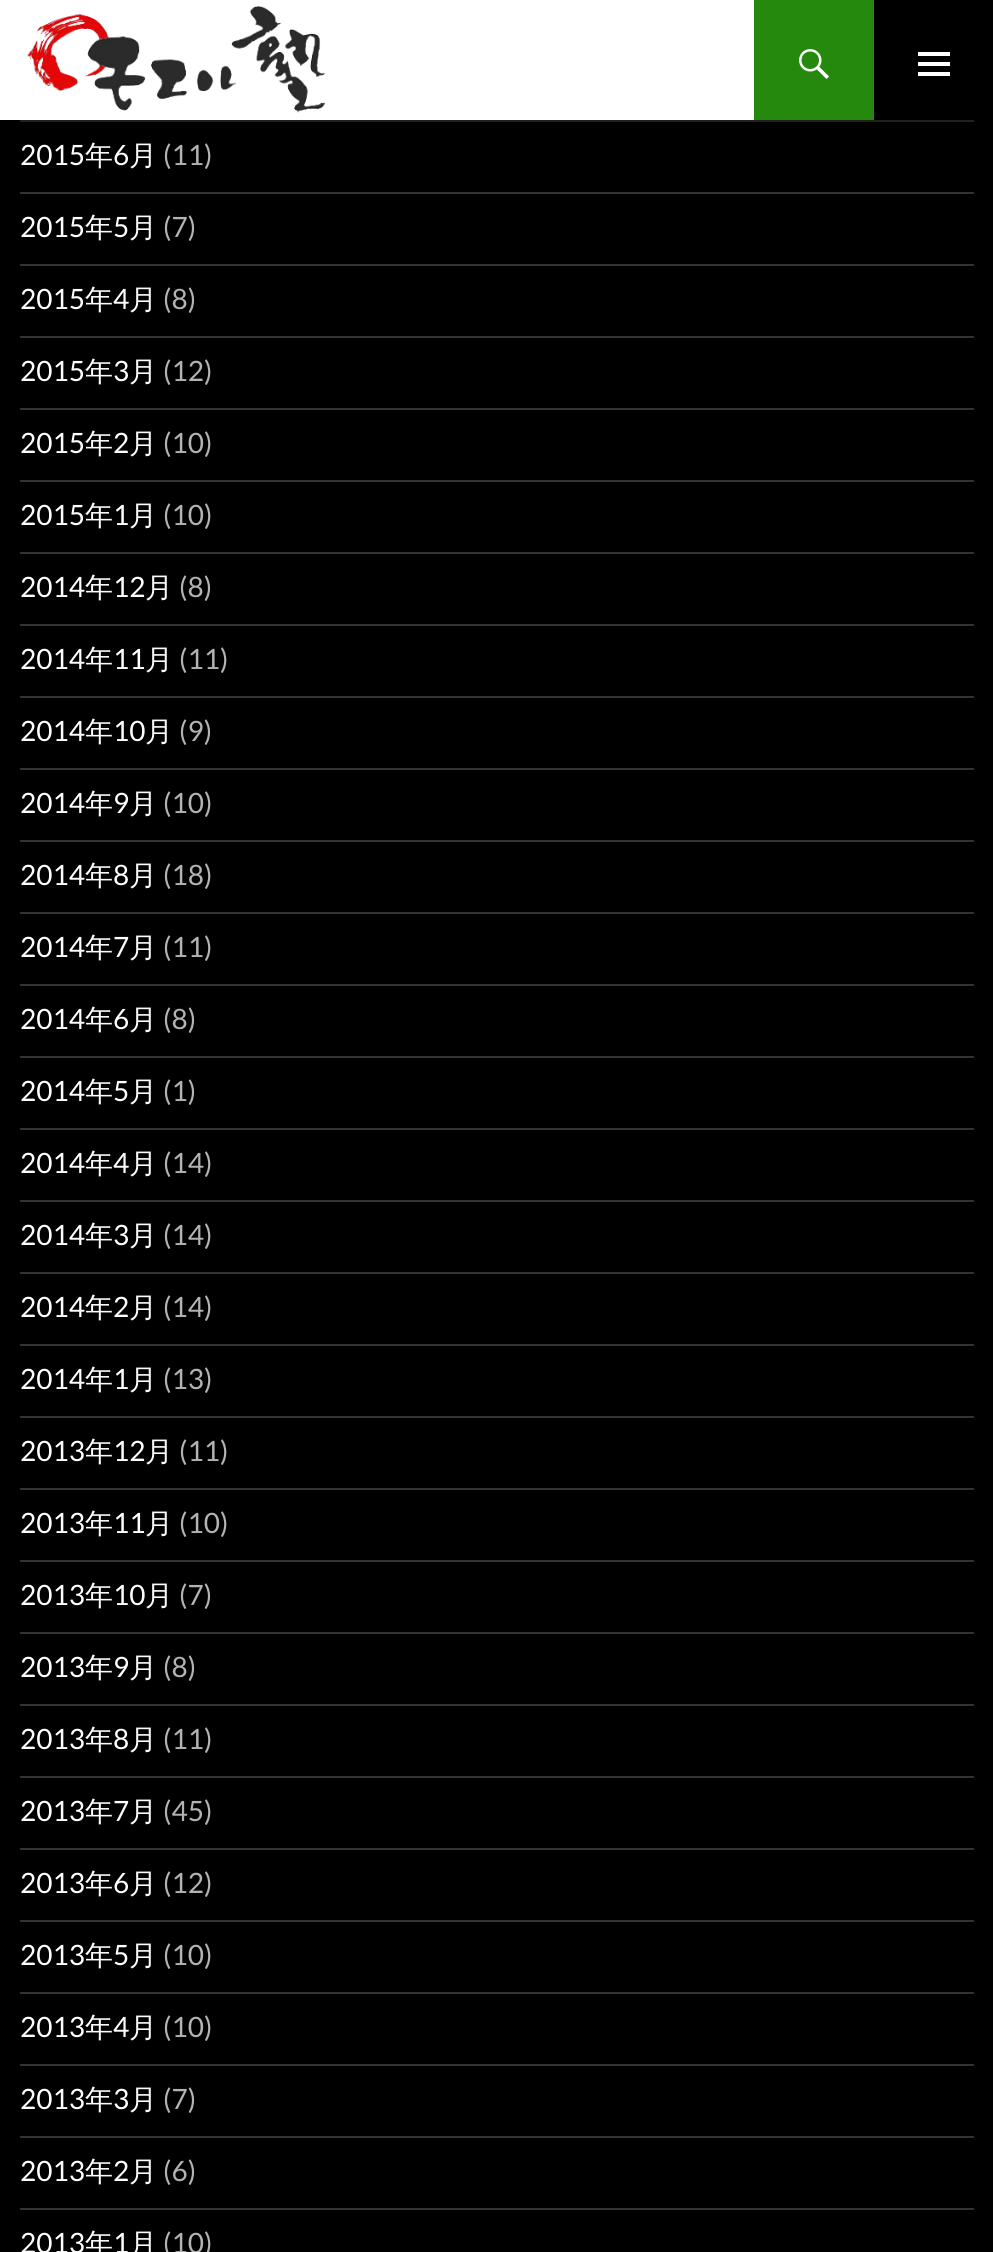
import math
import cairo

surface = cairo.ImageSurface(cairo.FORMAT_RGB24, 993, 2252)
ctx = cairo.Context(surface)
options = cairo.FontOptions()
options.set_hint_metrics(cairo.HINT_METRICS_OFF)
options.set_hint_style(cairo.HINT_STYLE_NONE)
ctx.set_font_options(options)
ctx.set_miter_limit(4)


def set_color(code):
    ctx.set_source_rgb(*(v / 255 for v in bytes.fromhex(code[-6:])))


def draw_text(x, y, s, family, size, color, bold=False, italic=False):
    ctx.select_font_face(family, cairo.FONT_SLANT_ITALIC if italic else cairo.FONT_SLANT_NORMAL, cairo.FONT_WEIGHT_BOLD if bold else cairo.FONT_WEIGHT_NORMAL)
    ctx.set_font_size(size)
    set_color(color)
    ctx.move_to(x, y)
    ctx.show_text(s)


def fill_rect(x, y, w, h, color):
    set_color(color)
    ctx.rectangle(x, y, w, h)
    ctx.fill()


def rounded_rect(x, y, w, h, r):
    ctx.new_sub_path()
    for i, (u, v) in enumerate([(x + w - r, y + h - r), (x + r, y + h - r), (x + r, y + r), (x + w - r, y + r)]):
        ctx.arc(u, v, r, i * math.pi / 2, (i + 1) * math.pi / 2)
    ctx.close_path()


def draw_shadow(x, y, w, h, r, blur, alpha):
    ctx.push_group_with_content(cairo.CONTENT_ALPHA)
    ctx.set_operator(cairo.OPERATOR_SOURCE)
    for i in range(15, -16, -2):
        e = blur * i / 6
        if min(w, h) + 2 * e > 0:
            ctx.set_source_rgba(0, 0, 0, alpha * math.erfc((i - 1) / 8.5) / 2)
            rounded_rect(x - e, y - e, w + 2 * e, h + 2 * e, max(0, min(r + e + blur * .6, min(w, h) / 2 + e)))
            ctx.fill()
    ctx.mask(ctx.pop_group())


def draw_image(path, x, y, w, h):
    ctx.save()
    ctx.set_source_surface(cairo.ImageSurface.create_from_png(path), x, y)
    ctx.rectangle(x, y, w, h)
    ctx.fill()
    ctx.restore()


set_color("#000000")
ctx.paint()
fill_rect(0, 0, 754, 120, "#ffffff")
fill_rect(20, 120, 954, 2, "#333333")
ctx.save()
ctx.rectangle(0, 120, 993, 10)
ctx.clip()
set_color("#000000")
draw_shadow(0, 0, 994, 120, 0, 5, 0.8)
ctx.restore()
draw_image("assets/img1.png", 27, 6, 299, 107)
fill_rect(754, 0, 120, 120, "#24890d")
draw_image("assets/img2.png", 799, 49, 30, 30)
draw_image("assets/img3.png", 918, 52, 32, 24)
draw_text(20, 165, "2015", "Lato", 28, "#ffffff")
draw_text(85, 165, "年", "WenQuanYi Zen Hei Medium", 28, "#ffffff")
draw_text(113, 165, "6", "Lato", 28, "#ffffff")
draw_text(129, 165, "月", "WenQuanYi Zen Hei Medium", 28, "#ffffff")
draw_text(163, 165, "(11)", "Lato", 28, "#b3b3b3")
fill_rect(20, 192, 954, 2, "#333333")
draw_text(20, 237, "2015", "Lato", 28, "#ffffff")
draw_text(85, 237, "年", "WenQuanYi Zen Hei Medium", 28, "#ffffff")
draw_text(113, 237, "5", "Lato", 28, "#ffffff")
draw_text(129, 237, "月", "WenQuanYi Zen Hei Medium", 28, "#ffffff")
draw_text(163, 237, "(7)", "Lato", 28, "#b3b3b3")
fill_rect(20, 264, 954, 2, "#333333")
draw_text(20, 309, "2015", "Lato", 28, "#ffffff")
draw_text(85, 309, "年", "WenQuanYi Zen Hei Medium", 28, "#ffffff")
draw_text(113, 309, "4", "Lato", 28, "#ffffff")
draw_text(129, 309, "月", "WenQuanYi Zen Hei Medium", 28, "#ffffff")
draw_text(163, 309, "(8)", "Lato", 28, "#b3b3b3")
fill_rect(20, 336, 954, 2, "#333333")
draw_text(20, 381, "2015", "Lato", 28, "#ffffff")
draw_text(85, 381, "年", "WenQuanYi Zen Hei Medium", 28, "#ffffff")
draw_text(113, 381, "3", "Lato", 28, "#ffffff")
draw_text(129, 381, "月", "WenQuanYi Zen Hei Medium", 28, "#ffffff")
draw_text(163, 381, "(12)", "Lato", 28, "#b3b3b3")
fill_rect(20, 408, 954, 2, "#333333")
draw_text(20, 453, "2015", "Lato", 28, "#ffffff")
draw_text(85, 453, "年", "WenQuanYi Zen Hei Medium", 28, "#ffffff")
draw_text(113, 453, "2", "Lato", 28, "#ffffff")
draw_text(129, 453, "月", "WenQuanYi Zen Hei Medium", 28, "#ffffff")
draw_text(163, 453, "(10)", "Lato", 28, "#b3b3b3")
fill_rect(20, 480, 954, 2, "#333333")
draw_text(20, 525, "2015", "Lato", 28, "#ffffff")
draw_text(85, 525, "年", "WenQuanYi Zen Hei Medium", 28, "#ffffff")
draw_text(113, 525, "1", "Lato", 28, "#ffffff")
draw_text(129, 525, "月", "WenQuanYi Zen Hei Medium", 28, "#ffffff")
draw_text(163, 525, "(10)", "Lato", 28, "#b3b3b3")
fill_rect(20, 552, 954, 2, "#333333")
draw_text(20, 597, "2014", "Lato", 28, "#ffffff")
draw_text(85, 597, "年", "WenQuanYi Zen Hei Medium", 28, "#ffffff")
draw_text(113, 597, "12", "Lato", 28, "#ffffff")
draw_text(145, 597, "月", "WenQuanYi Zen Hei Medium", 28, "#ffffff")
draw_text(179, 597, "(8)", "Lato", 28, "#b3b3b3")
fill_rect(20, 624, 954, 2, "#333333")
draw_text(20, 669, "2014", "Lato", 28, "#ffffff")
draw_text(85, 669, "年", "WenQuanYi Zen Hei Medium", 28, "#ffffff")
draw_text(113, 669, "11", "Lato", 28, "#ffffff")
draw_text(145, 669, "月", "WenQuanYi Zen Hei Medium", 28, "#ffffff")
draw_text(179, 669, "(11)", "Lato", 28, "#b3b3b3")
fill_rect(20, 696, 954, 2, "#333333")
draw_text(20, 741, "2014", "Lato", 28, "#ffffff")
draw_text(85, 741, "年", "WenQuanYi Zen Hei Medium", 28, "#ffffff")
draw_text(113, 741, "10", "Lato", 28, "#ffffff")
draw_text(145, 741, "月", "WenQuanYi Zen Hei Medium", 28, "#ffffff")
draw_text(179, 741, "(9)", "Lato", 28, "#b3b3b3")
fill_rect(20, 768, 954, 2, "#333333")
draw_text(20, 813, "2014", "Lato", 28, "#ffffff")
draw_text(85, 813, "年", "WenQuanYi Zen Hei Medium", 28, "#ffffff")
draw_text(113, 813, "9", "Lato", 28, "#ffffff")
draw_text(129, 813, "月", "WenQuanYi Zen Hei Medium", 28, "#ffffff")
draw_text(163, 813, "(10)", "Lato", 28, "#b3b3b3")
fill_rect(20, 840, 954, 2, "#333333")
draw_text(20, 885, "2014", "Lato", 28, "#ffffff")
draw_text(85, 885, "年", "WenQuanYi Zen Hei Medium", 28, "#ffffff")
draw_text(113, 885, "8", "Lato", 28, "#ffffff")
draw_text(129, 885, "月", "WenQuanYi Zen Hei Medium", 28, "#ffffff")
draw_text(163, 885, "(18)", "Lato", 28, "#b3b3b3")
fill_rect(20, 912, 954, 2, "#333333")
draw_text(20, 957, "2014", "Lato", 28, "#ffffff")
draw_text(85, 957, "年", "WenQuanYi Zen Hei Medium", 28, "#ffffff")
draw_text(113, 957, "7", "Lato", 28, "#ffffff")
draw_text(129, 957, "月", "WenQuanYi Zen Hei Medium", 28, "#ffffff")
draw_text(163, 957, "(11)", "Lato", 28, "#b3b3b3")
fill_rect(20, 984, 954, 2, "#333333")
draw_text(20, 1029, "2014", "Lato", 28, "#ffffff")
draw_text(85, 1029, "年", "WenQuanYi Zen Hei Medium", 28, "#ffffff")
draw_text(113, 1029, "6", "Lato", 28, "#ffffff")
draw_text(129, 1029, "月", "WenQuanYi Zen Hei Medium", 28, "#ffffff")
draw_text(163, 1029, "(8)", "Lato", 28, "#b3b3b3")
fill_rect(20, 1056, 954, 2, "#333333")
draw_text(20, 1101, "2014", "Lato", 28, "#ffffff")
draw_text(85, 1101, "年", "WenQuanYi Zen Hei Medium", 28, "#ffffff")
draw_text(113, 1101, "5", "Lato", 28, "#ffffff")
draw_text(129, 1101, "月", "WenQuanYi Zen Hei Medium", 28, "#ffffff")
draw_text(163, 1101, "(1)", "Lato", 28, "#b3b3b3")
fill_rect(20, 1128, 954, 2, "#333333")
draw_text(20, 1173, "2014", "Lato", 28, "#ffffff")
draw_text(85, 1173, "年", "WenQuanYi Zen Hei Medium", 28, "#ffffff")
draw_text(113, 1173, "4", "Lato", 28, "#ffffff")
draw_text(129, 1173, "月", "WenQuanYi Zen Hei Medium", 28, "#ffffff")
draw_text(163, 1173, "(14)", "Lato", 28, "#b3b3b3")
fill_rect(20, 1200, 954, 2, "#333333")
draw_text(20, 1245, "2014", "Lato", 28, "#ffffff")
draw_text(85, 1245, "年", "WenQuanYi Zen Hei Medium", 28, "#ffffff")
draw_text(113, 1245, "3", "Lato", 28, "#ffffff")
draw_text(129, 1245, "月", "WenQuanYi Zen Hei Medium", 28, "#ffffff")
draw_text(163, 1245, "(14)", "Lato", 28, "#b3b3b3")
fill_rect(20, 1272, 954, 2, "#333333")
draw_text(20, 1317, "2014", "Lato", 28, "#ffffff")
draw_text(85, 1317, "年", "WenQuanYi Zen Hei Medium", 28, "#ffffff")
draw_text(113, 1317, "2", "Lato", 28, "#ffffff")
draw_text(129, 1317, "月", "WenQuanYi Zen Hei Medium", 28, "#ffffff")
draw_text(163, 1317, "(14)", "Lato", 28, "#b3b3b3")
fill_rect(20, 1344, 954, 2, "#333333")
draw_text(20, 1389, "2014", "Lato", 28, "#ffffff")
draw_text(85, 1389, "年", "WenQuanYi Zen Hei Medium", 28, "#ffffff")
draw_text(113, 1389, "1", "Lato", 28, "#ffffff")
draw_text(129, 1389, "月", "WenQuanYi Zen Hei Medium", 28, "#ffffff")
draw_text(163, 1389, "(13)", "Lato", 28, "#b3b3b3")
fill_rect(20, 1416, 954, 2, "#333333")
draw_text(20, 1461, "2013", "Lato", 28, "#ffffff")
draw_text(85, 1461, "年", "WenQuanYi Zen Hei Medium", 28, "#ffffff")
draw_text(113, 1461, "12", "Lato", 28, "#ffffff")
draw_text(145, 1461, "月", "WenQuanYi Zen Hei Medium", 28, "#ffffff")
draw_text(179, 1461, "(11)", "Lato", 28, "#b3b3b3")
fill_rect(20, 1488, 954, 2, "#333333")
draw_text(20, 1533, "2013", "Lato", 28, "#ffffff")
draw_text(85, 1533, "年", "WenQuanYi Zen Hei Medium", 28, "#ffffff")
draw_text(113, 1533, "11", "Lato", 28, "#ffffff")
draw_text(145, 1533, "月", "WenQuanYi Zen Hei Medium", 28, "#ffffff")
draw_text(179, 1533, "(10)", "Lato", 28, "#b3b3b3")
fill_rect(20, 1560, 954, 2, "#333333")
draw_text(20, 1605, "2013", "Lato", 28, "#ffffff")
draw_text(85, 1605, "年", "WenQuanYi Zen Hei Medium", 28, "#ffffff")
draw_text(113, 1605, "10", "Lato", 28, "#ffffff")
draw_text(145, 1605, "月", "WenQuanYi Zen Hei Medium", 28, "#ffffff")
draw_text(179, 1605, "(7)", "Lato", 28, "#b3b3b3")
fill_rect(20, 1632, 954, 2, "#333333")
draw_text(20, 1677, "2013", "Lato", 28, "#ffffff")
draw_text(85, 1677, "年", "WenQuanYi Zen Hei Medium", 28, "#ffffff")
draw_text(113, 1677, "9", "Lato", 28, "#ffffff")
draw_text(129, 1677, "月", "WenQuanYi Zen Hei Medium", 28, "#ffffff")
draw_text(163, 1677, "(8)", "Lato", 28, "#b3b3b3")
fill_rect(20, 1704, 954, 2, "#333333")
draw_text(20, 1749, "2013", "Lato", 28, "#ffffff")
draw_text(85, 1749, "年", "WenQuanYi Zen Hei Medium", 28, "#ffffff")
draw_text(113, 1749, "8", "Lato", 28, "#ffffff")
draw_text(129, 1749, "月", "WenQuanYi Zen Hei Medium", 28, "#ffffff")
draw_text(163, 1749, "(11)", "Lato", 28, "#b3b3b3")
fill_rect(20, 1776, 954, 2, "#333333")
draw_text(20, 1821, "2013", "Lato", 28, "#ffffff")
draw_text(85, 1821, "年", "WenQuanYi Zen Hei Medium", 28, "#ffffff")
draw_text(113, 1821, "7", "Lato", 28, "#ffffff")
draw_text(129, 1821, "月", "WenQuanYi Zen Hei Medium", 28, "#ffffff")
draw_text(163, 1821, "(45)", "Lato", 28, "#b3b3b3")
fill_rect(20, 1848, 954, 2, "#333333")
draw_text(20, 1893, "2013", "Lato", 28, "#ffffff")
draw_text(85, 1893, "年", "WenQuanYi Zen Hei Medium", 28, "#ffffff")
draw_text(113, 1893, "6", "Lato", 28, "#ffffff")
draw_text(129, 1893, "月", "WenQuanYi Zen Hei Medium", 28, "#ffffff")
draw_text(163, 1893, "(12)", "Lato", 28, "#b3b3b3")
fill_rect(20, 1920, 954, 2, "#333333")
draw_text(20, 1965, "2013", "Lato", 28, "#ffffff")
draw_text(85, 1965, "年", "WenQuanYi Zen Hei Medium", 28, "#ffffff")
draw_text(113, 1965, "5", "Lato", 28, "#ffffff")
draw_text(129, 1965, "月", "WenQuanYi Zen Hei Medium", 28, "#ffffff")
draw_text(163, 1965, "(10)", "Lato", 28, "#b3b3b3")
fill_rect(20, 1992, 954, 2, "#333333")
draw_text(20, 2037, "2013", "Lato", 28, "#ffffff")
draw_text(85, 2037, "年", "WenQuanYi Zen Hei Medium", 28, "#ffffff")
draw_text(113, 2037, "4", "Lato", 28, "#ffffff")
draw_text(129, 2037, "月", "WenQuanYi Zen Hei Medium", 28, "#ffffff")
draw_text(163, 2037, "(10)", "Lato", 28, "#b3b3b3")
fill_rect(20, 2064, 954, 2, "#333333")
draw_text(20, 2109, "2013", "Lato", 28, "#ffffff")
draw_text(85, 2109, "年", "WenQuanYi Zen Hei Medium", 28, "#ffffff")
draw_text(113, 2109, "3", "Lato", 28, "#ffffff")
draw_text(129, 2109, "月", "WenQuanYi Zen Hei Medium", 28, "#ffffff")
draw_text(163, 2109, "(7)", "Lato", 28, "#b3b3b3")
fill_rect(20, 2136, 954, 2, "#333333")
draw_text(20, 2181, "2013", "Lato", 28, "#ffffff")
draw_text(85, 2181, "年", "WenQuanYi Zen Hei Medium", 28, "#ffffff")
draw_text(113, 2181, "2", "Lato", 28, "#ffffff")
draw_text(129, 2181, "月", "WenQuanYi Zen Hei Medium", 28, "#ffffff")
draw_text(163, 2181, "(6)", "Lato", 28, "#b3b3b3")
fill_rect(20, 2208, 954, 2, "#333333")
draw_text(20, 2253, "2013", "Lato", 28, "#ffffff")
draw_text(85, 2253, "年", "WenQuanYi Zen Hei Medium", 28, "#ffffff")
draw_text(113, 2253, "1", "Lato", 28, "#ffffff")
draw_text(129, 2253, "月", "WenQuanYi Zen Hei Medium", 28, "#ffffff")
draw_text(163, 2253, "(10)", "Lato", 28, "#b3b3b3")
surface.write_to_png("output.png")
